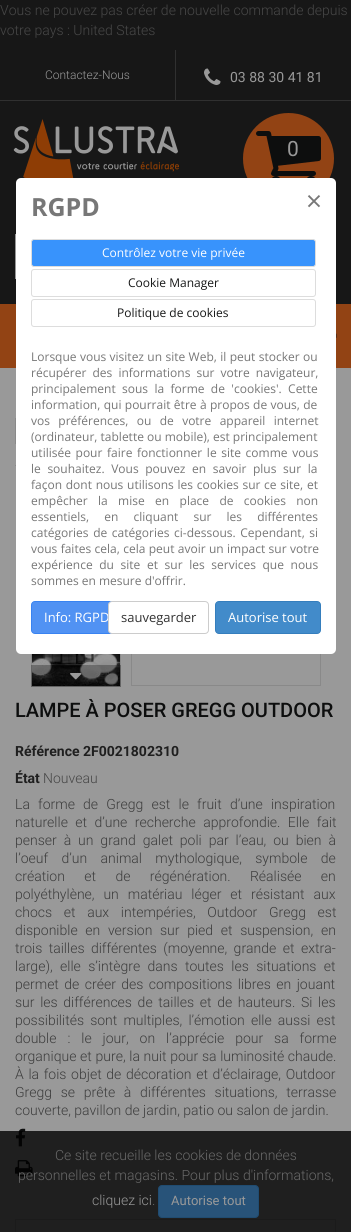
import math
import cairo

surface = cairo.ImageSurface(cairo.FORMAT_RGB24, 351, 1232)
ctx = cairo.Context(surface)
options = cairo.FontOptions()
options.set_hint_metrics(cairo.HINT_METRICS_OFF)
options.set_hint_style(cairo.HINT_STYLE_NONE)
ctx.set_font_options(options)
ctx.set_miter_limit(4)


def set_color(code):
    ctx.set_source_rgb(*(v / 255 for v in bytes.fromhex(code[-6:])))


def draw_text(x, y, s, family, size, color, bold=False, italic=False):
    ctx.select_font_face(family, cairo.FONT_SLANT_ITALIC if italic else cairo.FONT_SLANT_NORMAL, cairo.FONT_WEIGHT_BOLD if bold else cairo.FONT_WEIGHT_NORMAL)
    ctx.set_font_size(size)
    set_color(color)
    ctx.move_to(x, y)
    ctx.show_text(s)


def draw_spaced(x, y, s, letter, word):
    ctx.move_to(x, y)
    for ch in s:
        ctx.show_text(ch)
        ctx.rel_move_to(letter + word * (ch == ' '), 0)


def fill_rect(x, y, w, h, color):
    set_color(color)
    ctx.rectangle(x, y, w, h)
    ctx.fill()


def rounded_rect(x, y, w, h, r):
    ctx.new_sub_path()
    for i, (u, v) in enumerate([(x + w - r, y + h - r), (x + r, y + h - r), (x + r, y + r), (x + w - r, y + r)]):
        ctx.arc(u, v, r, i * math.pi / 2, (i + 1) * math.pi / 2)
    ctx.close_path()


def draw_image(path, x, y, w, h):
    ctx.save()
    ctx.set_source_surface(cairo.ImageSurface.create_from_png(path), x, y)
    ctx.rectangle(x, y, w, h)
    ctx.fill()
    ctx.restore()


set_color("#171717")
ctx.paint()
draw_text(0, 15, "Vous ne pouvez pas créer de nouvelle commande depuis", "Roboto Light", 14, "#474747")
draw_text(0, 35, "votre pays : United States", "Roboto Light", 14, "#474747")
fill_rect(0, 368, 351, 864, "#999999")
fill_rect(175, 50, 1, 50, "#303030")
draw_text(45, 79, "Contactez-Nous", "Roboto Light", 12, "#999999")
draw_image("assets/img1.png", 204, 68, 17, 17)
draw_text(230, 82, "03 88 30 41 81", "Roboto", 14, "#999999")
fill_rect(0, 100, 351, 1, "#303030")
draw_image("assets/img2.png", 13, 119, 166, 59)
set_color("#924314")
ctx.arc(288.5, 158.5, 45.5, 0, 2 * math.pi)
ctx.fill()
draw_image("assets/img3.png", 256, 131, 65, 47)
draw_text(287, 156, "0", "Roboto", 21, "#999999")
fill_rect(15, 234, 1, 45, "#979797")
fill_rect(0, 304, 351, 64, "#924314")
draw_image("assets/img4.png", 336, 333, 1, 5)
ctx.rectangle(15.5, 418.5, 250, 25)
set_color("#898989")
ctx.set_line_width(1)
ctx.stroke()
fill_rect(15, 465, 1, 1, "#898989")
ctx.rectangle(31.5, 597.5, 89, 89)
ctx.stroke()
draw_image("assets/img5.png", 32, 654, 88, 32)
ctx.set_source_rgba(0.043, 0.043, 0.043, 0.3)
ctx.rectangle(31, 665, 90, 22)
ctx.fill()
draw_image("assets/img6.png", 70, 673, 12, 7)
ctx.rectangle(131.5, 496.5, 189, 189)
set_color("#898989")
ctx.stroke()
draw_text(15, 717, "LAMPE À POSER GREGG OUTDOOR", "Roboto Medium", 20, "#0d0e0e")
draw_text(15, 756, "Référence 2F0021802310", "Roboto", 14, "#1f1f1f", bold=True)
draw_text(15, 783, "État", "Roboto", 14, "#1f1f1f", bold=True)
draw_text(43, 783, "Nouveau", "Roboto Light", 14, "#474747")
set_color("#3d3d3d")
draw_spaced(15, 809, "La forme de Gregg est le fruit d’une inspiration", 0, 4.75)
draw_spaced(15, 827, "naturelle et d’une recherche approfondie. Elle fait", 0, 4)
draw_spaced(15, 845, "penser à un grand galet poli par l’eau, ou bien à", 0, 3.5)
draw_spaced(15, 863, "l’oeuf d’un animal mythologique, symbole de", 0, 10)
draw_spaced(15, 881, "création et de régénération. Réalisée en", 0, 16)
draw_spaced(15, 899, "polyéthylène, un matériau léger et résistant aux", 0, 5.5)
draw_spaced(15, 917, "chocs et aux intempéries, Outdoor Gregg est", 0, 8.25)
draw_spaced(15, 935, "disponible en version sur pied et suspension, en", 0, 4.25)
draw_spaced(15, 953, "trois tailles différentes (moyenne, grande et extra-", 0, 3)
draw_spaced(15, 971, "large), elle s’intègre dans toutes les situations et", 0, 4)
draw_spaced(15, 989, "permet de créer des compositions libres en jouant", 0, 2)
draw_spaced(15, 1007, "sur les différences de tailles et de hauteurs. Si les", 0, 2.25)
draw_spaced(15, 1025, "possibilités sont multiples, l’émotion elle aussi est", 0, 2.75)
draw_spaced(15, 1043, "double : le jour, on l’apprécie pour sa forme", 0, 7.5)
draw_spaced(15, 1061, "organique et pure, la nuit pour sa luminosité chaude.", 0, 0.25)
draw_spaced(15, 1079, "À la fois objet de décoration et d’éclairage, Outdoor", 0, 1.25)
draw_spaced(15, 1097, "Gregg se prête à différentes situations, terrasse", 0, 5.25)
draw_text(15, 1115, "couverte, pavillon de jardin, patio ou salon de jardin.", "Roboto Light", 14, "#3d3d3d")
draw_image("assets/img7.png", 16, 1128, 10, 19)
draw_image("assets/img8.png", 15, 1160, 18, 17)
ctx.rectangle(15.5, 1219.5, 320, 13)
set_color("#898989")
ctx.stroke()
ctx.set_source_rgba(0, 0, 0, 0.8)
ctx.rectangle(0, 1131, 351, 101)
ctx.fill()
draw_text(55, 1160, "Ce site recueille les cookies de données", "Roboto Light", 14, "#686868")
draw_text(18, 1180, "personnelles et magasins. Pour plus d'informations,", "Roboto Light", 14, "#686868")
draw_text(92, 1205, "cliquez ici", "Roboto Light", 14, "#999999")
draw_text(152, 1205, ".", "Roboto Light", 14, "#686868")
set_color("#285379")
rounded_rect(158.5, 1185.5, 100, 32, 3.5)
ctx.fill_preserve()
set_color("#204c71")
ctx.stroke()
draw_text(171, 1205, "Autorise tout", "Roboto", 13, "#999999")
set_color("#ffffff")
rounded_rect(16, 178, 320, 476, 5)
ctx.fill()
draw_text(31, 216, "RGPD", "Open Sans", 25, "#777777", bold=True)
draw_text(306, 211, "×", "Open Sans", 28, "#777777")
set_color("#3893fc")
rounded_rect(31.5, 239.5, 284, 27, 2.5)
ctx.fill_preserve()
set_color("#dddddd")
ctx.stroke()
draw_text(102, 257, "Contrôlez votre vie privée", "Open Sans", 12, "#ffffff")
rounded_rect(31.5, 269.5, 284, 27, 2.5)
set_color("#dddddd")
ctx.stroke()
draw_text(128, 287, "Cookie Manager", "Open Sans", 12, "#161717")
rounded_rect(31.5, 299.5, 284, 27, 2.5)
set_color("#dddddd")
ctx.stroke()
draw_text(117, 317, "Politique de cookies", "Open Sans", 12, "#161717")
set_color("#777777")
draw_spaced(31, 361, "Lorsque vous visitez un site Web, il peut stocker ou", 0, 0.25)
draw_spaced(31, 377, "récupérer des informations sur votre navigateur,", 0, 3)
draw_spaced(31, 393, "principalement sous la forme de 'cookies'. Cette", 0, 3.25)
draw_spaced(31, 409, "information, qui pourrait être à propos de vous, de", 0, 0.25)
draw_spaced(31, 425, "vos préférences, ou de votre appareil internet", 0, 5.25)
draw_text(31, 441, "(ordinateur, tablette ou mobile), est principalement", "Open Sans", 12, "#777777")
draw_spaced(31, 457, "utilisée pour faire fonctionner le site comme vous", 0, 1.5)
draw_spaced(31, 473, "le souhaitez. Vous pouvez en savoir plus sur la", 0, 3.5)
draw_spaced(31, 489, "façon dont nous utilisons les cookies sur ce site, et", 0, 0.6)
draw_spaced(31, 505, "empêcher la mise en place de cookies non", 0, 7.25)
draw_spaced(31, 521, "essentiels, en cliquant sur les différentes", 0, 12)
draw_spaced(31, 537, "catégories de catégories ci-dessous. Cependant, si", 0, 1.5)
draw_spaced(31, 553, "vous faites cela, cela peut avoir un impact sur votre", 0, 0.25)
draw_spaced(31, 569, "expérience du site et sur les services que nous", 0, 3.5)
draw_text(31, 585, "sommes en mesure d'offrir.", "Open Sans", 12, "#777777")
set_color("#5192f3")
rounded_rect(31.5, 601.5, 90, 32, 3.5)
ctx.fill_preserve()
set_color("#3983f1")
ctx.stroke()
draw_text(44, 622, "Info: RGPD", "Open Sans", 13, "#ffffff")
rounded_rect(108.5, 601.5, 100, 32, 3.5)
ctx.fill_preserve()
set_color("#cccccc")
ctx.stroke()
draw_text(121, 622, "sauvegarder", "Open Sans", 13, "#333333")
set_color("#428bca")
rounded_rect(215.5, 601.5, 105, 32, 3.5)
ctx.fill_preserve()
set_color("#357ebd")
ctx.stroke()
draw_text(228, 622, "Autorise tout", "Open Sans", 13, "#ffffff")
surface.write_to_png("output.png")
